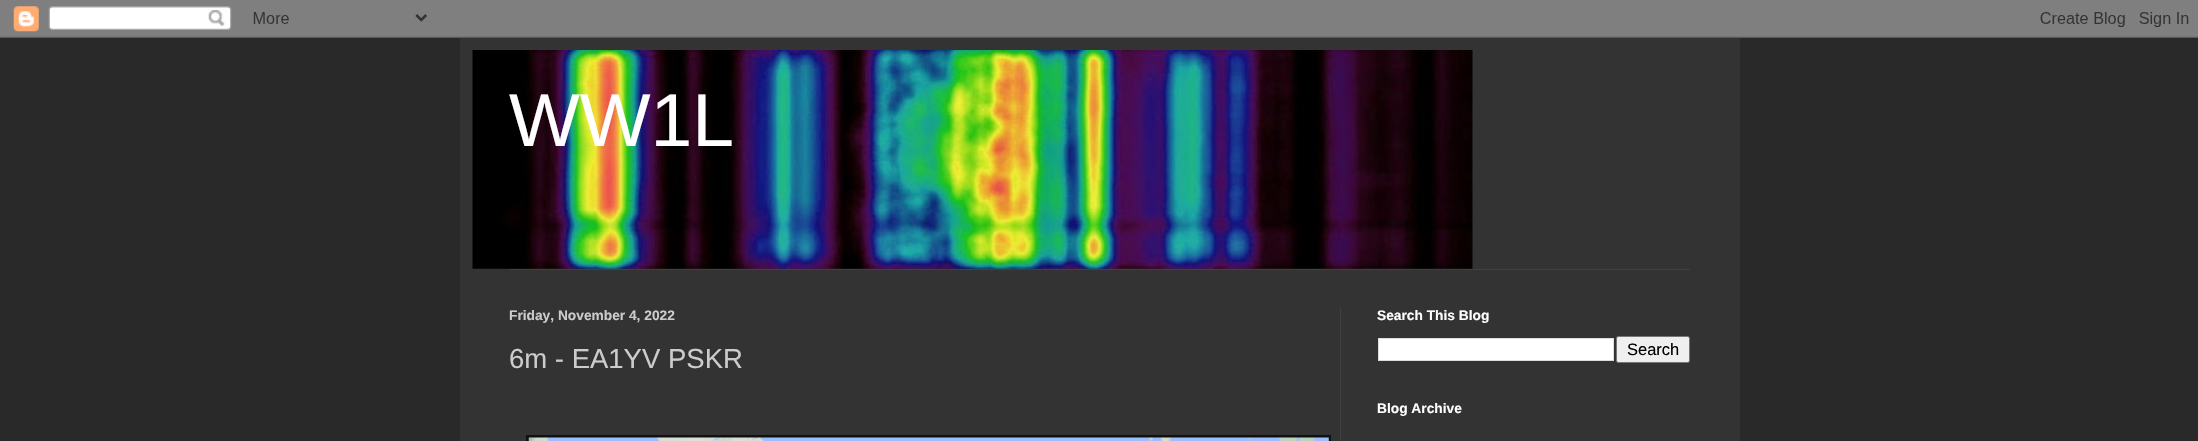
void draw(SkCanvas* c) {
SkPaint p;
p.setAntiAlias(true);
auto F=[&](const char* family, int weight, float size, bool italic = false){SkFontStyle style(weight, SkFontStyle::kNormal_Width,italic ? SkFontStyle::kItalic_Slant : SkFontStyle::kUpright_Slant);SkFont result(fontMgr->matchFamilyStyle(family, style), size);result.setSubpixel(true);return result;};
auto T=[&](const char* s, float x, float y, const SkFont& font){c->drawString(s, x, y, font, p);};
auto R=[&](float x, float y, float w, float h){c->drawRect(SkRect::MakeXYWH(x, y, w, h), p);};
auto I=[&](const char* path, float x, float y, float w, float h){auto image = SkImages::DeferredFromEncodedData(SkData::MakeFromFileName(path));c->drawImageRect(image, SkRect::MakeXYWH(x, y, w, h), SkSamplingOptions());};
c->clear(0xff292929);
I("1.png",0,0,2198,38);
p.setColor(0xff333333);
R(460,38,1280,403);
I("2.png",472,50,1001,219);
auto f1 = F("Liberation Sans",400,75);
p.setColor(0xffffffff);
T("WW1L",509,146,f1);
p.setColor(0xff404040);
R(510,269,1180,1);
R(1340,308,1,133);
auto f2 = F("Liberation Sans",700,13.75);
p.setColor(0xffcccccc);
T("Friday, November 4, 2022",509,320,f2);
auto f3 = F("Liberation Sans",400,27.5);
T("6m - EA1YV PSKR",509,368,f3);
p.setColor(0xff111111);
R(526,435,805,6);
I("3.png",528,437,801,4);
p.setColor(0xffffffff);
T("Search This Blog",1377,320,f2);
c->drawRect(SkRect::MakeXYWH(1378.5,338.5,235,22),p);
p.setStroke(true);
p.setStrokeWidth(1);
p.setColor(0xffdddddd);
c->drawRect(SkRect::MakeXYWH(1378.5,338.5,235,22),p);
p.setStroke(false);
p.setColor(0xffefefef);
c->drawRoundRect(SkRect::MakeXYWH(1616.5,336.5,73,26),2,2,p);
p.setStroke(true);
p.setColor(0xff767676);
c->drawRoundRect(SkRect::MakeXYWH(1616.5,336.5,73,26),2,2,p);
auto f4 = F("Liberation Sans",400,16.5);
p.setStroke(false);
p.setColor(0xff000000);
T("Search",1627,355,f4);
p.setColor(0xffffffff);
T("Blog Archive",1377,413,f2);
}
